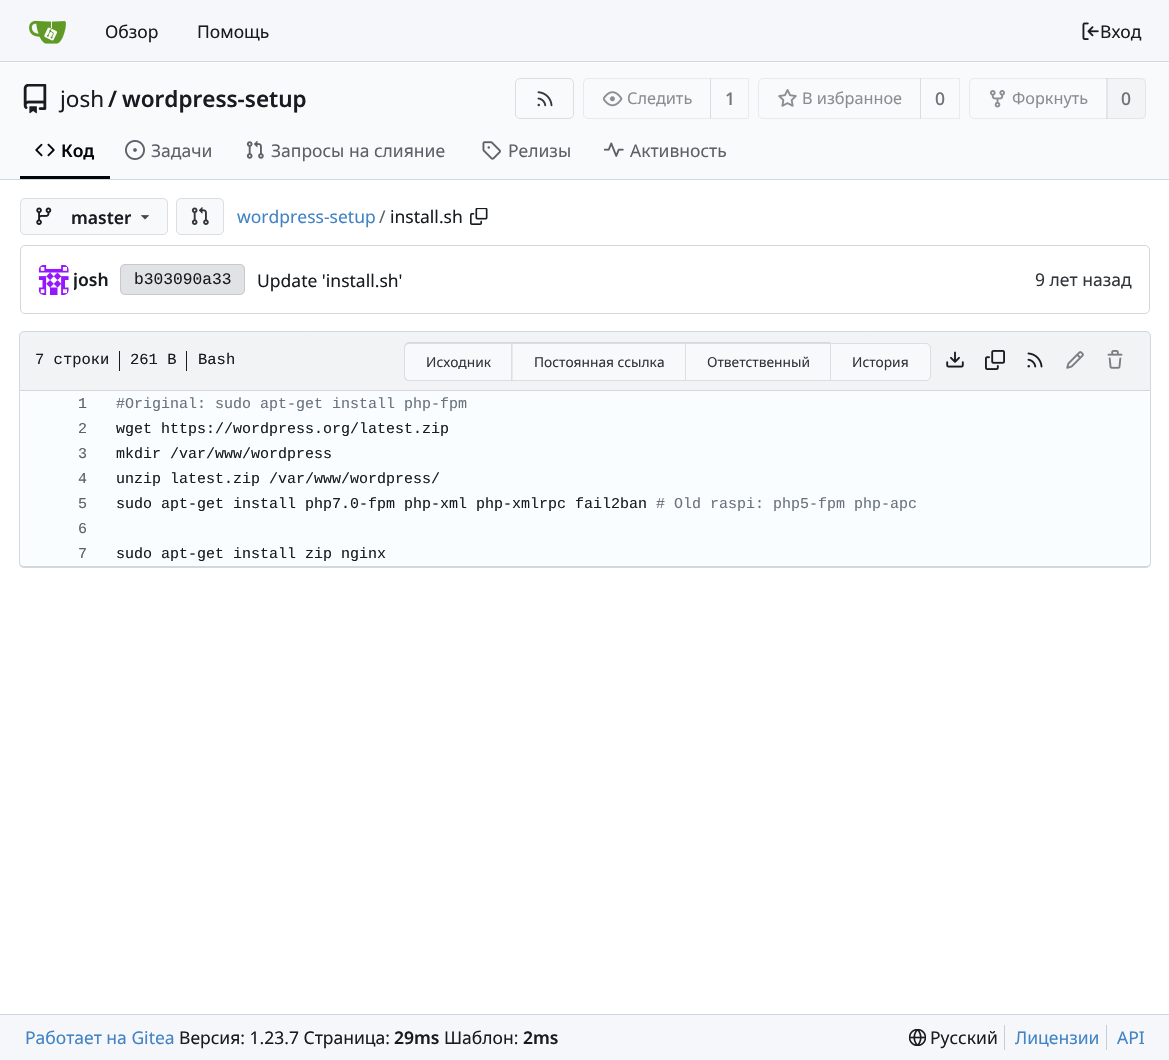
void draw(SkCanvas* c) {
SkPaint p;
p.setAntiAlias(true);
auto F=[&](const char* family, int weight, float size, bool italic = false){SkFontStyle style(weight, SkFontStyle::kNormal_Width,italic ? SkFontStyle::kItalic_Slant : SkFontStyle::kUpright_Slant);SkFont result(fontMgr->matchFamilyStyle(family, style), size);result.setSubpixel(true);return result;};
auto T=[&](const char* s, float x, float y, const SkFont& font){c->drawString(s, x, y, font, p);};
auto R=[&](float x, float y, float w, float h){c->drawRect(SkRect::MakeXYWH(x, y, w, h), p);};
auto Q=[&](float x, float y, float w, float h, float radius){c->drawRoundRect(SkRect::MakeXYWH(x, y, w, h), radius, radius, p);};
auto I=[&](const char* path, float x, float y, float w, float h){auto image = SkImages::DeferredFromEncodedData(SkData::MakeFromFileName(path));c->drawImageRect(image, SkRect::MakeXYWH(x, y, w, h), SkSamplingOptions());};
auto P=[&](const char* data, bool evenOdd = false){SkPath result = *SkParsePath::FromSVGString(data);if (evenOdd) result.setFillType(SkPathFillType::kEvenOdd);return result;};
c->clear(0xffffffff);
p.setColor(0xfff6f7fa);
R(0,0,1169,61);
p.setColor(0xffd0d7de);
R(0,61,1169,1);
I("1.png",29,20,37,24);
auto f1 = F("Noto Sans",400,17.5);
p.setColor(0xff181c21);
T("Обзор",105,38,f1);
T("Помощь",197,38,f1);
I("2.png",1082,22,17,18);
T("Вход",1100,38,f1);
p.setColor(0xfff9fafb);
R(0,63,1169,116);
I("3.png",23,84,24,30);
auto f2 = F("Noto Sans",400,22.5);
p.setColor(0xff181c21);
T("josh",60,107,f2);
auto f3 = F("Noto Sans",600,22.5);
T("/",108,107,f3);
T("wordpress-setup",122,107,f3);
p.setStroke(true);
p.setStrokeWidth(1);
p.setColor(0xffdddee1);
c->drawRoundRect(SkRect::MakeXYWH(515.5,78.5,58,40),4.5,4.5,p);
I("4.png",537,91,16,16);
p.setColor(0xffe9eaed);
c->drawPath(P("M588 78.5h122.5v40h-122.5c-2.5 0-4.5-2-4.5-4.5v-31c0-2.5 2-4.5 4.5-4.5z"),p);
I("5.png",603,91,20,16);
auto f4 = F("Noto Sans",400,16.25);
p.setStroke(false);
p.setColor(0xff8a8e91);
T("Следить",627,104,f4);
p.setStroke(true);
p.setColor(0x0f000017);
c->drawRect(SkRect::MakeXYWH(710.5,78.5,38,40),p);
auto f5 = F("Noto Sans",500,17.5);
p.setStroke(false);
p.setColor(0xff717376);
T("1",725,105,f5);
p.setStroke(true);
p.setColor(0xffe9eaed);
c->drawPath(P("M763 78.5h157.5v40h-157.5c-2.5 0-4.5-2-4.5-4.5v-31c0-2.5 2-4.5 4.5-4.5z"),p);
I("6.png",778,89,19,18);
p.setStroke(false);
p.setColor(0xff8a8e91);
T("В избранное",802,104,f4);
p.setStroke(true);
p.setColor(0x0f000017);
c->drawRect(SkRect::MakeXYWH(920.5,78.5,39,40),p);
p.setStroke(false);
p.setColor(0xff717376);
T("0",935,105,f5);
p.setStroke(true);
p.setColor(0xffe9eaed);
c->drawPath(P("M974 78.5h133.5v40h-133.5c-2.5 0-4.5-2-4.5-4.5v-31c0-2.5 2-4.5 4.5-4.5z"),p);
I("7.png",990,90,15,18);
p.setStroke(false);
p.setColor(0xff8a8e91);
T("Форкнуть",1012,104,f4);
p.setColor(0x0a707171);
R(1106,78,40,41);
p.setStroke(true);
p.setColor(0x1c70717e);
c->drawPath(P("M1106.5 78.5h34.5c2.5 0 4.5 2 4.5 4.5v31c0 2.5-2 4.5-4.5 4.5h-34.5z"),p);
p.setStroke(false);
p.setColor(0xff717376);
T("0",1121,105,f5);
p.setColor(0xff01050a);
R(20,176,90,3);
I("8.png",35,143,20,14);
auto f6 = F("Noto Sans",600,17.5);
T("Код",61,157,f6);
I("9.png",125,140,20,20);
p.setColor(0xff5b6167);
T("Задачи",151,157,f1);
I("10.png",246,140,18,19);
T("Запросы на слияние",271,157,f1);
I("11.png",482,141,19,19);
T("Релизы",508,157,f1);
I("12.png",604,142,20,15);
T("Активность",630,157,f1);
p.setColor(0xffd0d7de);
R(0,179,1169,1);
p.setColor(0xfff8f9fb);
Q(20,198,148,37,5);
p.setStroke(true);
p.setColor(0x1c000017);
c->drawRoundRect(SkRect::MakeXYWH(20.5,198.5,147,36),4.5,4.5,p);
I("13.png",36,207,16,18);
c->save();
c->clipRect(SkRect::MakeXYWH(71,205,60,24));
p.setStroke(false);
p.setColor(0xff181c21);
T("master",71,224,f6);
c->restore();
I("14.png",141,215,8,5);
p.setColor(0xfff8f9fb);
Q(176,198,48,37,5);
p.setStroke(true);
p.setColor(0x1c000017);
c->drawRoundRect(SkRect::MakeXYWH(176.5,198.5,47,36),4.5,4.5,p);
I("15.png",191,207,18,18);
p.setStroke(false);
p.setColor(0xff4183c4);
T("wordpress-setup",237,223,f1);
p.setColor(0xff5b6167);
T("/",379,223,f1);
p.setColor(0xff181c21);
T("install.sh",390,223,f1);
I("16.png",470,208,18,17);
p.setStroke(true);
p.setColor(0xffd0d7de);
c->drawRoundRect(SkRect::MakeXYWH(20.5,245.5,1129,68),4.5,4.5,p);
I("17.png",38,265,31,30);
c->save();
c->clipRect(SkRect::MakeXYWH(74,268,35,25));
p.setStroke(false);
p.setColor(0xff181c21);
T("josh",73,286,f6);
c->restore();
p.setColor(0xffe0e2e5);
Q(120,264,125,31,5);
p.setStroke(true);
p.setColor(0x1c000017);
c->drawRoundRect(SkRect::MakeXYWH(120.5,264.5,124,30),4.5,4.5,p);
auto f7 = F("Liberation Mono",400,16.25);
p.setStroke(false);
p.setColor(0xff181c21);
T("b303090a33",134,284,f7);
T("Update 'install.sh'",257,287,f1);
p.setColor(0xff30363b);
T("9 лет назад",1035,286,f1);
p.setColor(0xfff1f3f5);
c->drawPath(P("M24 331.5h1122c2.5 0 4.5 2 4.5 4.5v54.5h-1131v-54.5c0-2.5 2-4.5 4.5-4.5z"),p);
p.setStroke(true);
p.setColor(0xffd0d7de);
c->drawPath(P("M24 331.5h1122c2.5 0 4.5 2 4.5 4.5v54.5h-1131v-54.5c0-2.5 2-4.5 4.5-4.5z"),p);
auto f8 = F("Liberation Mono",400,15.5);
p.setStroke(false);
p.setColor(0xff181c21);
T("7 строки",35,364,f8);
R(119,351,1,20);
T("261 B",130,364,f8);
R(186,351,1,20);
T("Bash",198,364,f8);
p.setColor(0xfff8f9fb);
c->drawPath(P("M409 343h102v38h-102c-3 0-5-2-5-5v-28c0-3 2-5 5-5z"),p);
p.setColor(0x1c000017);
c->drawPath(P("M409 342h102v39h-102c-3 0-5-2-5-5v-28c0-3 2-6 5-6zm0 2h102v36h-102c-2 0-4-2-4-4v-28c0-3 2-4 4-4z",true),p);
auto f9 = F("Noto Sans",400,13.75);
p.setColor(0xff30363b);
T("Исходник",426,367,f9);
p.setColor(0xfff8f9fb);
R(511,343,319,38);
p.setColor(0x1c000017);
c->drawPath(P("M511 342h174v2h-173z"),p);
p.setColor(0xffdcdde1);
c->drawPath(P("M685 381h-174l1-1h173z"),p);
p.setColor(0x1c000017);
c->drawPath(P("M511 381v-38.5l1.5 1.5v36z"),p);
p.setColor(0xff30363b);
T("Постоянная ссылка",534,367,f9);
p.setColor(0x1c000017);
c->drawPath(P("M685 342h145v2h-144z"),p);
p.setColor(0xffdcdde1);
c->drawPath(P("M830 381h-145l1-1h144z"),p);
p.setColor(0x1c000017);
c->drawPath(P("M685 381v-38.5l1 1.5v36z"),p);
p.setColor(0xff30363b);
T("Ответственный",707,367,f9);
p.setColor(0xfff8f9fb);
c->drawPath(P("M830 343h96c3 0 5 2 5 5v28c0 3-2 5-5 5h-96z"),p);
p.setStroke(true);
p.setColor(0x1c000017);
c->drawPath(P("M830.5 343.5h95.5c2.5 0 4.5 2 4.5 4.5v28c0 2.5-2 4.5-4.5 4.5h-95.5z"),p);
p.setStroke(false);
p.setColor(0xff30363b);
T("История",852,367,f9);
I("18.png",946,351,18,17);
I("19.png",985,350,20,20);
I("20.png",1027,352,16,16);
I("21.png",1066,351,18,18);
I("22.png",1107,350,16,19);
p.setColor(0xffd0d7de);
c->drawPath(P("M19 391h1132v171c0 3-2 6-5 6h-1122c-3 0-5-3-5-6zm1 0h1130v171c0 3-2 4-4 4h-1122c-2 0-4-1-4-4z",true),p);
p.setColor(0xfffafdff);
Q(20,391,1130,175,5);
auto f10 = F("Liberation Mono",400,15);
p.setColor(0xff5b6167);
T("1",78,408,f10);
p.setColor(0xff6a737d);
T("#Original: sudo apt-get install php-fpm",116,408,f10);
p.setColor(0xff5b6167);
T("2",78,433,f10);
p.setColor(0xff181c21);
T("wget https://wordpress.org/latest.zip",116,433,f10);
p.setColor(0xff5b6167);
T("3",78,458,f10);
p.setColor(0xff181c21);
T("mkdir /var/www/wordpress",116,458,f10);
p.setColor(0xff5b6167);
T("4",78,483,f10);
p.setColor(0xff181c21);
T("unzip latest.zip /var/www/wordpress/",116,483,f10);
p.setColor(0xff5b6167);
T("5",78,508,f10);
p.setColor(0xff181c21);
T("sudo apt-get install php7.0-fpm php-xml php-xmlrpc fail2ban",116,508,f10);
p.setColor(0xff6a737d);
T("# Old raspi: php5-fpm php-apc",656,508,f10);
p.setColor(0xff5b6167);
T("6",78,533,f10);
T("7",78,558,f10);
p.setColor(0xff181c21);
T("sudo apt-get install zip nginx",116,558,f10);
p.setColor(0xfff6f7fa);
R(0,1015,1169,45);
p.setColor(0xffd0d7de);
R(0,1014,1169,1);
p.setColor(0xff4183c4);
T("Работает на Gitea",25,1044,f1);
p.setColor(0xff181c21);
T("Версия: 1.23.7 Страница:",179,1044,f1);
T("29ms",394,1044,f6);
T("Шаблон:",444,1044,f1);
T("2ms",523,1044,f6);
I("23.png",909,1029,17,17);
T("Русский",930,1044,f1);
p.setColor(0xffc7ced5);
R(1004,1025,1,25);
p.setColor(0xff4183c4);
T("Лицензии",1015,1044,f1);
p.setColor(0xffc7ced5);
R(1106,1025,1,25);
p.setColor(0xff4183c4);
T("API",1117,1044,f1);
}
